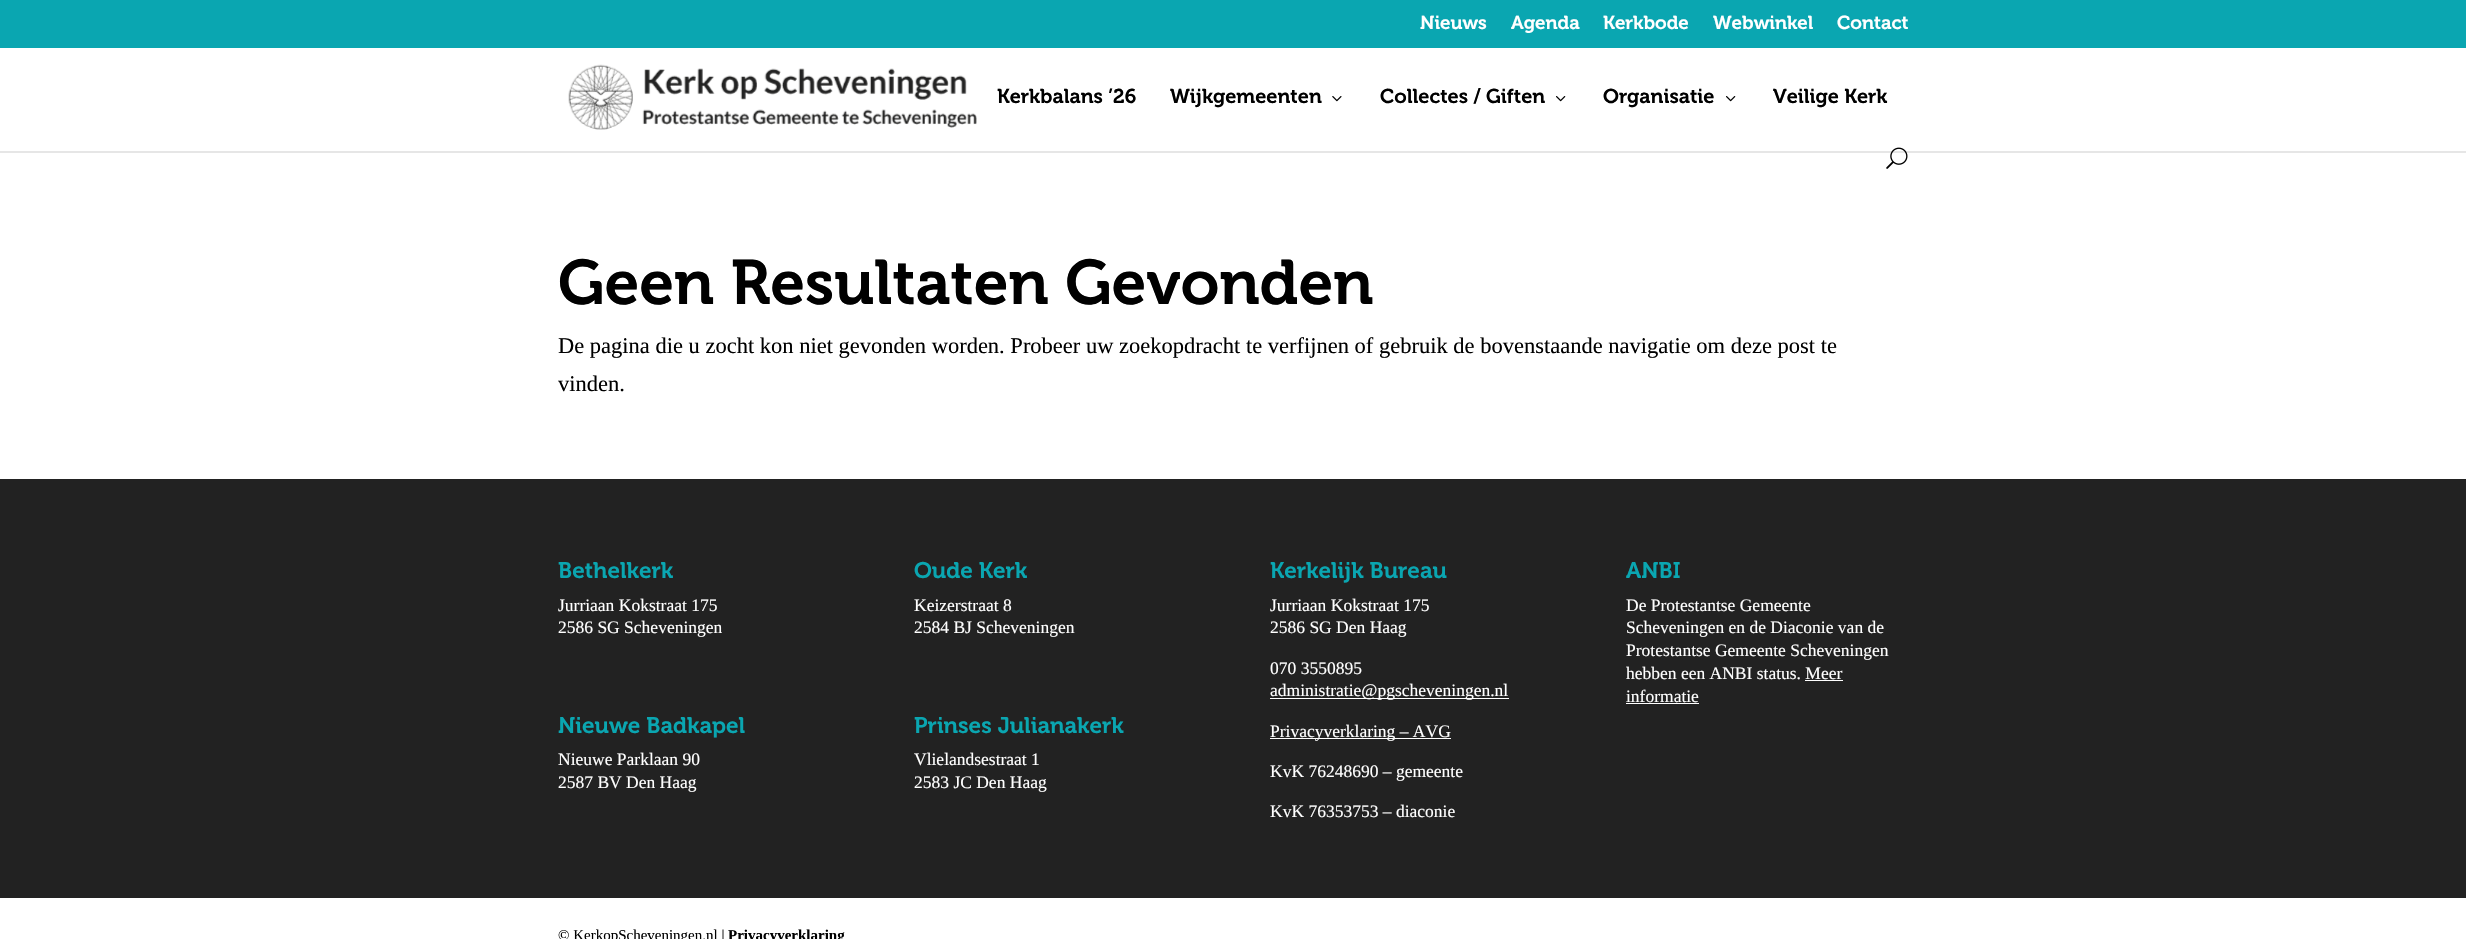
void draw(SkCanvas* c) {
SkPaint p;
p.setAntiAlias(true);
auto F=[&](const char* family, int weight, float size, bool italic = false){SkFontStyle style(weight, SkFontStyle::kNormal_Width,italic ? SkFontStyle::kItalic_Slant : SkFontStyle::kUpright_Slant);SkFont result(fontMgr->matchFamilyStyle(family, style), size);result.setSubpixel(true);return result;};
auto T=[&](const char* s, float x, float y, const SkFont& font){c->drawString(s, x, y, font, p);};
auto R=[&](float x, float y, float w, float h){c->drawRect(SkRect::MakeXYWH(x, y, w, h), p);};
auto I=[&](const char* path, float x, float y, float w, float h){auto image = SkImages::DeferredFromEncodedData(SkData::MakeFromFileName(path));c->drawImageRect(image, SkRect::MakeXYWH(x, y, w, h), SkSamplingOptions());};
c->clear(0xffffffff);
p.setColor(0xff0aa6b1);
R(0,0,2466,48);
auto f1 = F("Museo",600,18.75);
p.setColor(0xffffffff);
T("Nieuws",1420,29,f1);
T("Agenda",1511,29,f1);
T("Kerkbode",1603,29,f1);
T("Webwinkel",1713,29,f1);
T("Contact",1837,29,f1);
p.setColor(0xffe6e6e6);
R(0,151,2466,2);
I("1.png",568,64,409,66);
auto f2 = F("Museo",600,20);
p.setColor(0xff000000);
T("Kerkbalans ’26",997,103,f2);
T("Wijkgemeenten",1170,103,f2);
I("2.png",1332,96,10,6);
T("Collectes / Giften",1380,103,f2);
I("3.png",1556,96,10,6);
T("Organisatie",1603,103,f2);
I("3.png",1726,96,10,6);
T("Veilige Kerk",1773,103,f2);
I("4.png",1886,147,22,22);
auto f3 = F("Museo",600,62.5);
T("Geen Resultaten Gevonden",558,304,f3);
auto f4 = F("Liberation Serif",400,22.5);
T("De pagina die u zocht kon niet gevonden worden. Probeer uw zoekopdracht te verfijnen of gebruik de bovenstaande navigatie om deze post te",558,353,f4);
T("vinden.",558,391,f4);
p.setColor(0xff222222);
R(0,479,2466,419);
auto f5 = F("Museo",600,22.5);
p.setColor(0xff0aa6b1);
T("Bethelkerk",558,578,f5);
auto f6 = F("Liberation Serif",400,17.5);
p.setColor(0xffffffff);
T("Jurriaan Kokstraat 175",558,611,f6);
T("2586 SG Scheveningen",558,633,f6);
p.setColor(0xff0aa6b1);
T("Nieuwe Badkapel",558,733,f5);
p.setColor(0xffffffff);
T("Nieuwe Parklaan 90",558,765,f6);
T("2587 BV Den Haag",558,788,f6);
p.setColor(0xff0aa6b1);
T("Oude Kerk",914,578,f5);
p.setColor(0xffffffff);
T("Keizerstraat 8",914,611,f6);
T("2584 BJ Scheveningen",914,633,f6);
p.setColor(0xff0aa6b1);
T("Prinses Julianakerk",914,733,f5);
p.setColor(0xffffffff);
T("Vlielandsestraat 1",914,765,f6);
T("2583 JC Den Haag",914,788,f6);
p.setColor(0xff0aa6b1);
T("Kerkelijk Bureau",1270,578,f5);
p.setColor(0xffffffff);
T("Jurriaan Kokstraat 175",1270,611,f6);
T("2586 SG Den Haag",1270,633,f6);
T("070 3550895",1270,674,f6);
R(1270,698,239,1);
T("administratie@pgscheveningen.nl",1270,696,f6);
R(1270,738,181,1);
T("Privacyverklaring – AVG",1270,737,f6);
T("KvK 76248690 – gemeente",1270,777,f6);
T("KvK 76353753 – diaconie",1270,817,f6);
p.setColor(0xff0aa6b1);
T("ANBI",1626,578,f5);
p.setColor(0xffffffff);
T("De Protestantse Gemeente",1626,611,f6);
T("Scheveningen en de Diaconie van de",1626,633,f6);
T("Protestantse Gemeente Scheveningen",1626,656,f6);
T("hebben een ANBI status. Meer",1626,679,f6);
T("informatie",1626,702,f6);
R(1805,680,38,1);
R(1626,703,73,1);
auto f7 = F("Liberation Serif",400,15);
p.setColor(0xff000000);
T("© KerkopScheveningen.nl |",558,940,f7);
auto f8 = F("Liberation Serif",700,15);
T("Privacyverklaring",728,940,f8);
}
